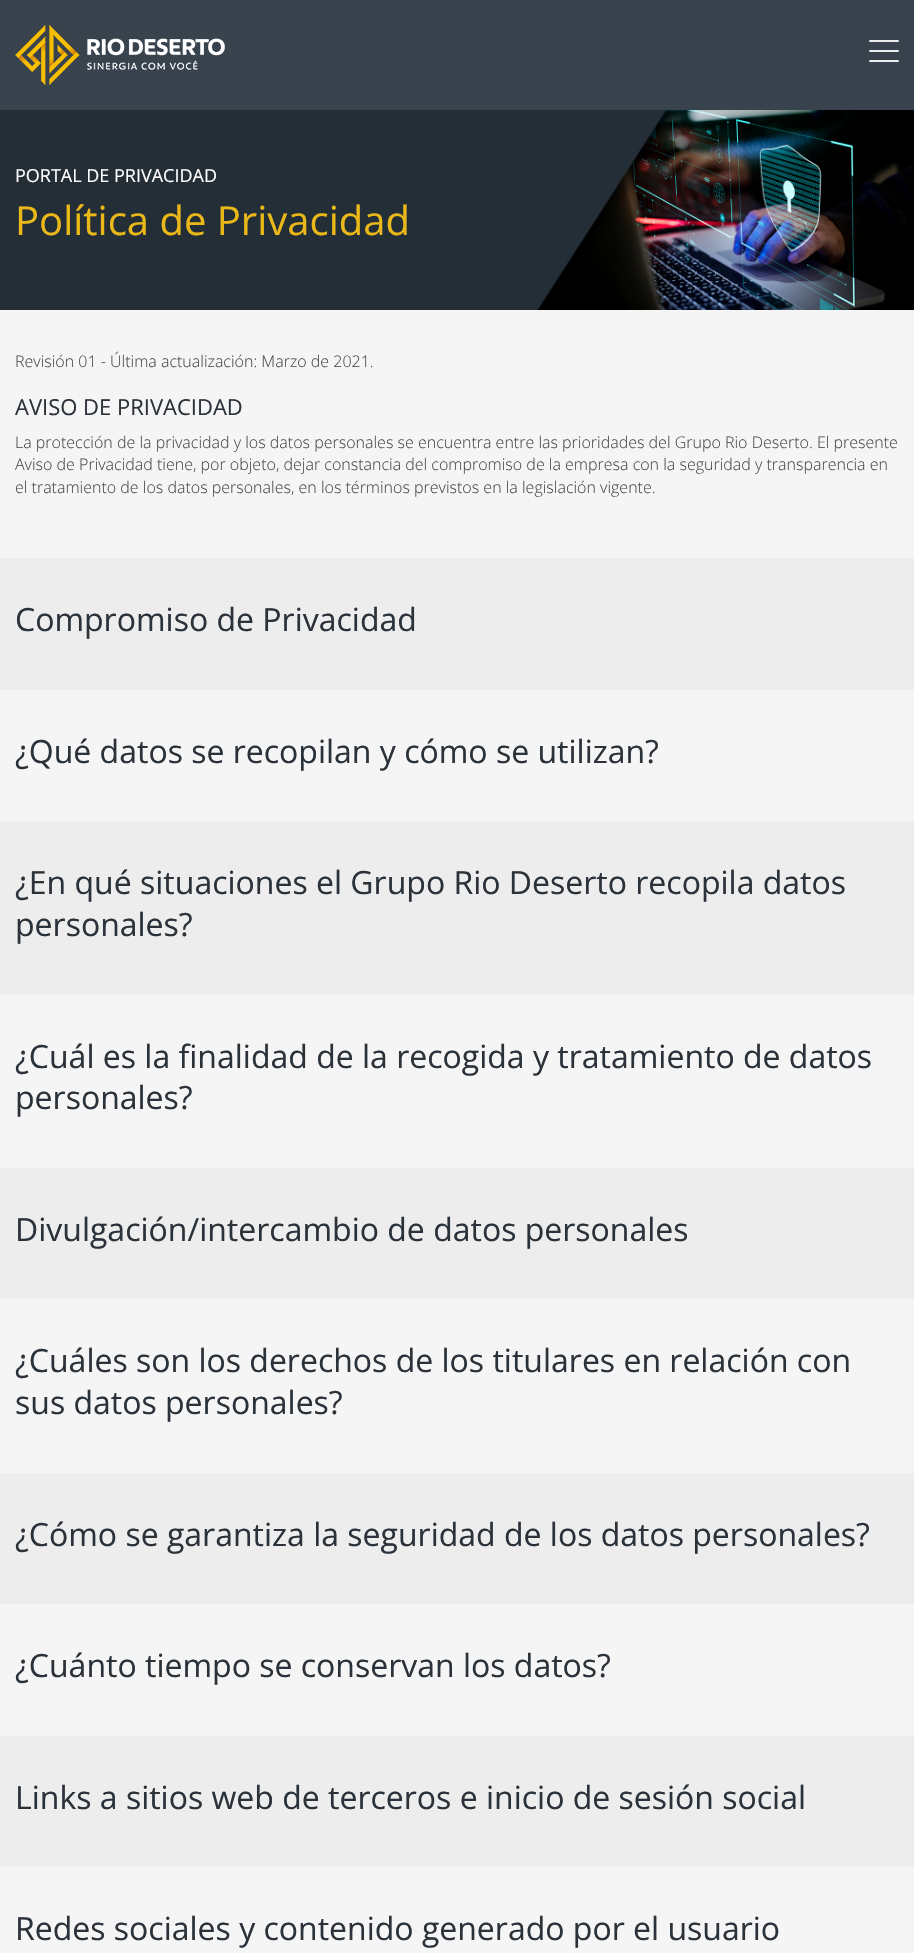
void draw(SkCanvas* c) {
SkPaint p;
p.setAntiAlias(true);
auto F=[&](const char* family, int weight, float size, bool italic = false){SkFontStyle style(weight, SkFontStyle::kNormal_Width,italic ? SkFontStyle::kItalic_Slant : SkFontStyle::kUpright_Slant);SkFont result(fontMgr->matchFamilyStyle(family, style), size);result.setSubpixel(true);return result;};
auto T=[&](const char* s, float x, float y, const SkFont& font){c->drawString(s, x, y, font, p);};
auto R=[&](float x, float y, float w, float h){c->drawRect(SkRect::MakeXYWH(x, y, w, h), p);};
auto Q=[&](float x, float y, float w, float h, float radius){c->drawRoundRect(SkRect::MakeXYWH(x, y, w, h), radius, radius, p);};
auto I=[&](const char* path, float x, float y, float w, float h){auto image = SkImages::DeferredFromEncodedData(SkData::MakeFromFileName(path));c->drawImageRect(image, SkRect::MakeXYWH(x, y, w, h), SkSamplingOptions());};
c->clear(0xff38434e);
I("1.png",15,25,210,60);
p.setColor(0xffededed);
Q(869,40,30,2,1);
Q(869,50,30,2,1);
Q(869,60,30,2,1);
I("2.png",0,110,914,200);
auto f1 = F("Open Sans",400,18);
p.setColor(0xffffffff);
T("PORTAL DE PRIVACIDAD",15,182,f1);
auto f2 = F("Open Sans",400,40);
p.setColor(0xffeab818);
T("Política de Privacidad",15,235,f2);
p.setColor(0xfff5f5f5);
R(0,310,914,1643);
auto f3 = F("Open Sans",300,16);
p.setColor(0xff4e4b4b);
T("Revisión 01 - Última actualización: Marzo de 2021.",15,367,f3);
auto f4 = F("Open Sans",400,22);
p.setColor(0xff2b3239);
T("AVISO DE PRIVACIDAD",15,415,f4);
p.setColor(0xff4e4b4b);
T("La protección de la privacidad y los datos personales se encuentra entre las prioridades del Grupo Rio Deserto. El presente",15,448,f3);
T("Aviso de Privacidad tiene, por objeto, dejar constancia del compromiso de la empresa con la seguridad y transparencia en",15,470,f3);
T("el tratamiento de los datos personales, en los términos previstos en la legislación vigente.",15,493,f3);
p.setColor(0xffededed);
R(0,558,914,132);
auto f5 = F("Open Sans",400,32);
p.setColor(0xff2b3239);
T("Compromiso de Privacidad",15,631,f5);
T("¿Qué datos se recopilan y cómo se utilizan?",15,763,f5);
p.setColor(0xffededed);
R(0,821,914,174);
p.setColor(0xff2b3239);
T("¿En qué situaciones el Grupo Rio Deserto recopila datos",15,894,f5);
T("personales?",15,936,f5);
T("¿Cuál es la finalidad de la recogida y tratamiento de datos",15,1068,f5);
T("personales?",15,1109,f5);
p.setColor(0xffededed);
R(0,1168,914,131);
p.setColor(0xff2b3239);
T("Divulgación/intercambio de datos personales",15,1241,f5);
T("¿Cuáles son los derechos de los titulares en relación con",15,1372,f5);
T("sus datos personales?",15,1414,f5);
p.setColor(0xffededed);
R(0,1473,914,131);
p.setColor(0xff2b3239);
T("¿Cómo se garantiza la seguridad de los datos personales?",15,1546,f5);
T("¿Cuánto tiempo se conservan los datos?",15,1677,f5);
p.setColor(0xffededed);
R(0,1736,914,131);
p.setColor(0xff2b3239);
T("Links a sitios web de terceros e inicio de sesión social",15,1809,f5);
T("Redes sociales y contenido generado por el usuario",15,1940,f5);
}
